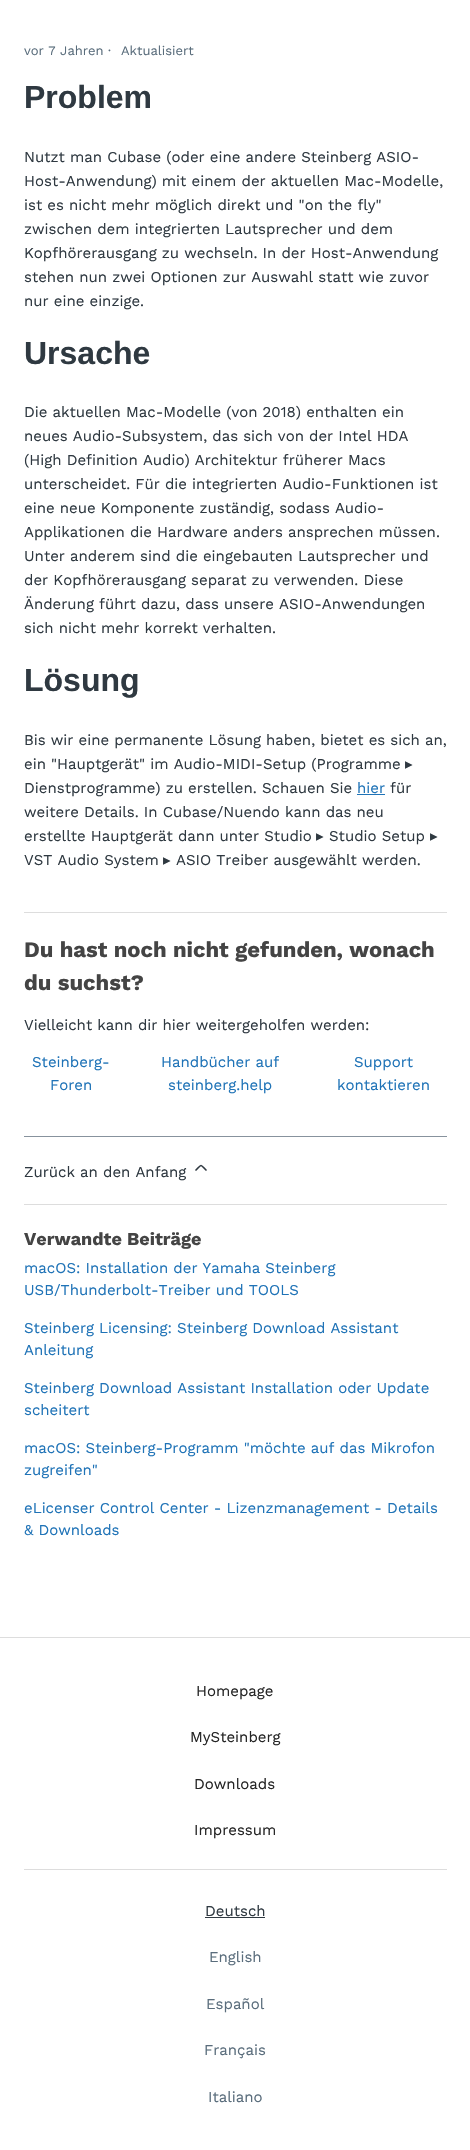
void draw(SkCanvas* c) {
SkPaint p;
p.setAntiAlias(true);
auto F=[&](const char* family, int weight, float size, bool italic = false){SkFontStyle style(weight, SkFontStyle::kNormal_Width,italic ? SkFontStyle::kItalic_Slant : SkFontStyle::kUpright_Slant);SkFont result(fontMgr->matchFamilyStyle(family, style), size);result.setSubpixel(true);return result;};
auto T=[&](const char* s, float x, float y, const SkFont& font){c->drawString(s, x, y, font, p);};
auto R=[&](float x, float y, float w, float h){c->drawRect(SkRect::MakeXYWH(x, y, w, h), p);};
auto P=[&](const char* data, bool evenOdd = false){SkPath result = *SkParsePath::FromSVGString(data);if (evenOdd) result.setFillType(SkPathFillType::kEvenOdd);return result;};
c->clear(0xffffffff);
auto f1 = F("Work Sans",400,13);
p.setColor(0xff5a6d7c);
T("vor 7 Jahren",24,55,f1);
T("·",108,55,f1);
T("Aktualisiert",121,55,f1);
auto f2 = F("Liberation Sans",700,32);
p.setColor(0xff2f3941);
T("Problem",24,108,f2);
auto f3 = F("Work Sans",400,15);
T("Nutzt man Cubase (oder eine andere Steinberg ASIO-",24,162,f3);
T("Host-Anwendung) mit einem der aktuellen Mac-Modelle,",24,186,f3);
T("ist es nicht mehr möglich direkt und \"on the fly\"",24,210,f3);
T("zwischen dem integrierten Lautsprecher und dem",24,234,f3);
T("Kopfhörerausgang zu wechseln. In der Host-Anwendung",24,258,f3);
T("stehen nun zwei Optionen zur Auswahl statt wie zuvor",24,282,f3);
T("nur eine einzige.",24,306,f3);
T("Ursache",24,364,f2);
T("Die aktuellen Mac-Modelle (von 2018) enthalten ein",24,417,f3);
T("neues Audio-Subsystem, das sich von der Intel HDA",24,441,f3);
T("(High Definition Audio) Architektur früherer Macs",24,465,f3);
T("unterscheidet. Für die integrierten Audio-Funktionen ist",24,489,f3);
T("eine neue Komponente zuständig, sodass Audio-",24,513,f3);
T("Applikationen die Hardware anders ansprechen müssen.",24,537,f3);
T("Unter anderem sind die eingebauten Lautsprecher und",24,561,f3);
T("der Kopfhörerausgang separat zu verwenden. Diese",24,585,f3);
T("Änderung führt dazu, dass unsere ASIO-Anwendungen",24,609,f3);
T("sich nicht mehr korrekt verhalten.",24,633,f3);
T("Lösung",24,691,f2);
T("Bis wir eine permanente Lösung haben, bietet es sich an,",24,745,f3);
T("ein \"Hauptgerät\" im Audio-MIDI-Setup (Programme",24,769,f3);
auto f4 = F("DejaVu Sans",400,15);
T("▸",405,769,f4);
T("Dienstprogramme) zu erstellen. Schauen Sie",24,793,f3);
p.setColor(0xff1f73b7);
T("hier",357,793,f3);
R(357,794,28,1);
p.setColor(0xff2f3941);
T("für",390,793,f3);
T("weitere Details. In Cubase/Nuendo kann das neu",24,817,f3);
T("erstellte Hauptgerät dann unter Studio",24,841,f3);
T("▸",316,841,f4);
T("Studio Setup",329,841,f3);
T("▸",430,841,f4);
T("VST Audio System",24,865,f3);
T("▸",163,865,f4);
T("ASIO Treiber ausgewählt werden.",176,865,f3);
p.setColor(0xffdddddd);
R(24,912,423,1);
auto f5 = F("Work Sans",700,22);
p.setColor(0xff444444);
T("Du hast noch nicht gefunden, wonach",24,957,f5);
T("du suchst?",24,990,f5);
p.setColor(0xff2f3941);
T("Vielleicht kann dir hier weitergeholfen werden:",24,1030,f3);
p.setColor(0xff1f73b7);
T("Steinberg-",32,1067,f3);
T("Foren",50,1090,f3);
T("Handbücher auf",161,1067,f3);
T("steinberg.help",168,1090,f3);
T("Support",354,1067,f3);
T("kontaktieren",337,1090,f3);
p.setColor(0xff87929d);
R(24,1136,423,1);
p.setColor(0xff2f3941);
T("Zurück an den Anfang",24,1177,f3);
p.setStroke(true);
p.setStrokeWidth(1.7);
p.setStrokeCap(SkPaint::kRound_Cap);
c->drawPath(P("M206 1170c-6-6-4-6-10 0"),p);
p.setStroke(false);
p.setColor(0xffdddddd);
R(24,1204,423,1);
auto f6 = F("Work Sans",700,18);
p.setColor(0xff444444);
T("Verwandte Beiträge",24,1245,f6);
p.setColor(0xff1f73b7);
T("macOS: Installation der Yamaha Steinberg",24,1273,f3);
T("USB/Thunderbolt-Treiber und TOOLS",24,1295,f3);
T("Steinberg Licensing: Steinberg Download Assistant",24,1333,f3);
T("Anleitung",24,1355,f3);
T("Steinberg Download Assistant Installation oder Update",24,1393,f3);
T("scheitert",24,1415,f3);
T("macOS: Steinberg-Programm \"möchte auf das Mikrofon",24,1453,f3);
T("zugreifen\"",24,1475,f3);
T("eLicenser Control Center - Lizenzmanagement - Details",24,1513,f3);
T("& Downloads",24,1535,f3);
p.setColor(0xffdddddd);
R(0,1637,470,1);
R(24,1869,423,1);
p.setColor(0xff252525);
T("Homepage",196,1696,f3);
T("MySteinberg",190,1742,f3);
T("Downloads",194,1789,f3);
T("Impressum",194,1835,f3);
p.setColor(0xff2f3941);
T("Deutsch",205,1916,f3);
R(205,1917,60,1);
p.setColor(0xff5a6d7c);
T("English",209,1962,f3);
T("Español",206,2009,f3);
T("Français",204,2055,f3);
T("Italiano",208,2102,f3);
}
